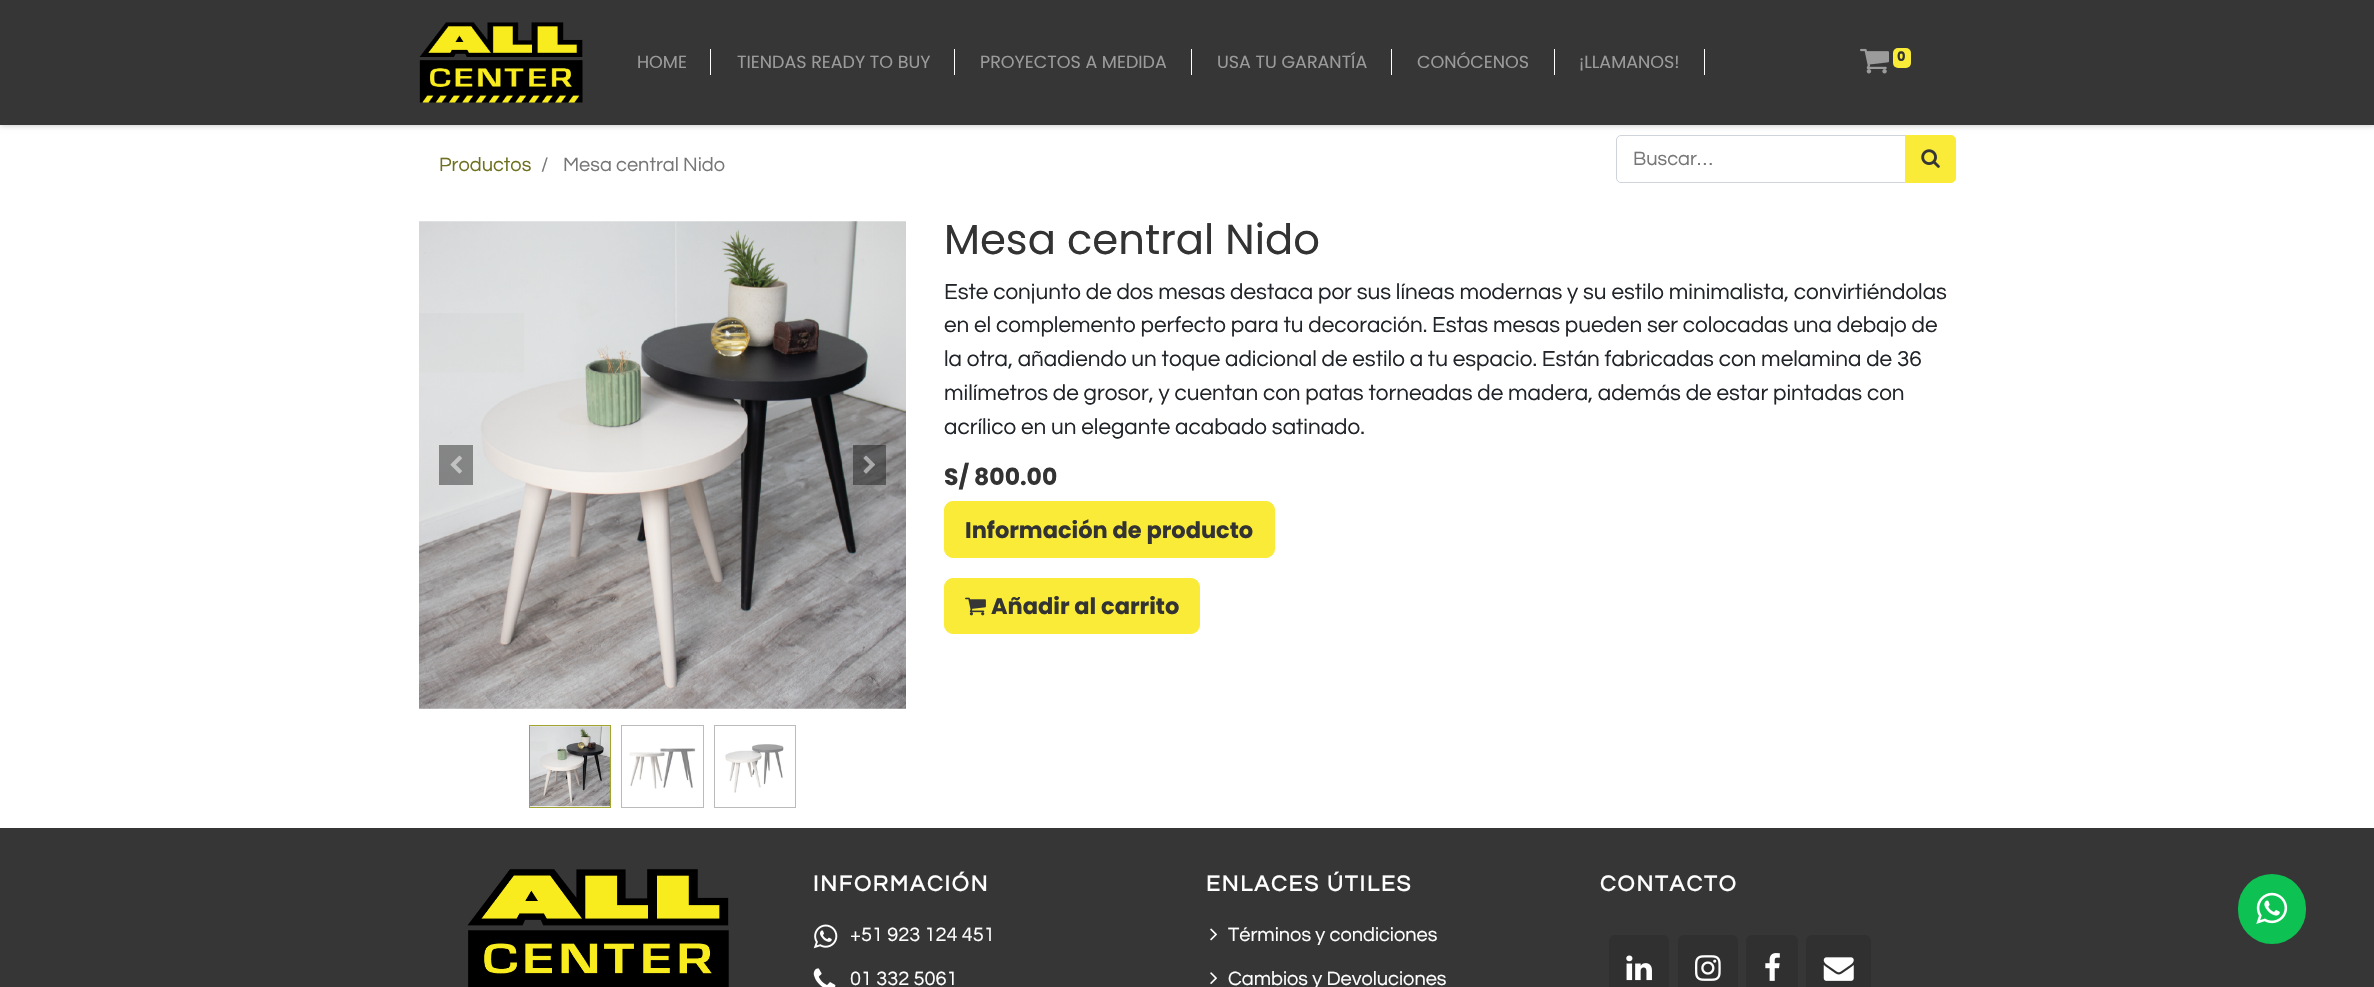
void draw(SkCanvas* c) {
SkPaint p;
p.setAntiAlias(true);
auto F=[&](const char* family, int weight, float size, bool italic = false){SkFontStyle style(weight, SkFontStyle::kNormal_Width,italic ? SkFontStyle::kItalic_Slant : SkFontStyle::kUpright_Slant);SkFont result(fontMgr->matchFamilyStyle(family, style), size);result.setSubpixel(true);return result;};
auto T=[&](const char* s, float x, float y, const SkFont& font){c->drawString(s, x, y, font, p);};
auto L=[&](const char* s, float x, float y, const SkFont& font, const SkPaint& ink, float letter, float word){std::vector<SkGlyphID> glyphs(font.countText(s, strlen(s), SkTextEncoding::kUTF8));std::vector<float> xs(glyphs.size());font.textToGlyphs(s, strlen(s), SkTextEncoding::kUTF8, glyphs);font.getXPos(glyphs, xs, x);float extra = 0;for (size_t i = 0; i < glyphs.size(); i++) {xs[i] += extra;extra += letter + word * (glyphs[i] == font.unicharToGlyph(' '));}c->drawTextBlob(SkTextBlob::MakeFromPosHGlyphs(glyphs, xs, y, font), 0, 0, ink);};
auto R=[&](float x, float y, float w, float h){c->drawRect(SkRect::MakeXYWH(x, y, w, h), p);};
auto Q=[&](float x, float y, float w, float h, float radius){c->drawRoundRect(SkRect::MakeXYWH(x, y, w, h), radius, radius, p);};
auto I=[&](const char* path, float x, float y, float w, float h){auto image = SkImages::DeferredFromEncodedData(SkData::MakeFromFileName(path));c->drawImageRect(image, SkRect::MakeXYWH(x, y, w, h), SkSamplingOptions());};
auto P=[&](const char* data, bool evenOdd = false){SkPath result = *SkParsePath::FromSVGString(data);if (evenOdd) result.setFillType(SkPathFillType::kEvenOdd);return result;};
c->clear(0xffffffff);
p.setColor(0x40000000);
p.setMaskFilter(SkMaskFilter::MakeBlur(kNormal_SkBlurStyle, 3));
c->drawRect(SkRect::MakeXYWH(0,0,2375,125),p);
p.setMaskFilter(nullptr);
p.setColor(0xff363636);
R(0,0,2374,125);
I("1.png",419,22,164,81);
auto f1 = F("Poppins",400,17.5);
p.setColor(0xff9b9b9b);
T("HOME",637,68,f1);
p.setColor(0xffffffff);
R(710,49,1,26);
p.setColor(0xff9b9b9b);
T("TIENDAS READY TO BUY",737,68,f1);
p.setColor(0xffffffff);
R(954,49,1,26);
p.setColor(0xff9b9b9b);
T("PROYECTOS A MEDIDA",980,68,f1);
p.setColor(0xffffffff);
R(1191,49,1,26);
p.setColor(0xff9b9b9b);
T("USA TU GARANTÍA",1217,68,f1);
p.setColor(0xffffffff);
R(1391,49,1,26);
p.setColor(0xff9b9b9b);
T("CONÓCENOS",1417,68,f1);
p.setColor(0xffffffff);
R(1554,49,1,26);
p.setColor(0xff9b9b9b);
T("¡LLAMANOS!",1579,68,f1);
p.setColor(0xffffffff);
R(1704,49,1,26);
I("2.png",1860,48,29,26);
p.setColor(0xfff9eb37);
Q(1893,48,18,20,5);
auto f2 = F("Poppins",700,13);
p.setColor(0xff333333);
T("0",1897,61,f2);
auto f3 = F("Questrial",400,20);
p.setColor(0xff6f7120);
T("Productos",439,171,f3);
p.setColor(0xff777777);
T("/",541,171,f3);
T("Mesa central Nido",563,171,f3);
p.setStroke(true);
p.setStrokeWidth(1);
p.setColor(0xffced4da);
c->drawPath(P("M1621 135.5h284.5v47h-284.5c-2.5 0-4.5-2-4.5-4.5v-38c0-2.5 2-4.5 4.5-4.5z"),p);
p.setStroke(false);
p.setColor(0xff777777);
T("Buscar…",1633,165,f3);
p.setColor(0xfff9eb37);
c->drawPath(P("M1905.5 135.5h45.5c2.5 0 4.5 2 4.5 4.5v38c0 2.5-2 4.5-4.5 4.5h-45.5z"),p);
p.setStroke(true);
c->drawPath(P("M1905.5 135.5h45.5c2.5 0 4.5 2 4.5 4.5v38c0 2.5-2 4.5-4.5 4.5h-45.5z"),p);
I("3.png",1921,149,19,19);
I("4.png",419,221,487,488);
p.setStroke(false);
p.setColor(0x66000000);
R(439,445,34,40);
I("5.png",450,455,12,19);
R(853,445,33,40);
I("6.png",863,455,12,19);
p.setStroke(true);
p.setColor(0xffa1a52f);
c->drawRect(SkRect::MakeXYWH(529.5,725.5,81,82),p);
I("7.png",530,726,80,81);
p.setColor(0xffbbbbbb);
c->drawRect(SkRect::MakeXYWH(621.5,725.5,82,82),p);
I("8.png",629,748,67,41);
c->drawRect(SkRect::MakeXYWH(714.5,725.5,81,82),p);
I("9.png",725,744,59,49);
auto f4 = F("Poppins",400,41.75);
p.setStroke(false);
p.setColor(0xff333333);
T("Mesa central Nido",944,254,f4);
auto f5 = F("Questrial",400,22.5);
p.setColor(0xff212529);
T("Este conjunto de dos mesas destaca por sus líneas modernas y su estilo minimalista, convirtiéndolas",944,299,f5);
T("en el complemento perfecto para tu decoración. Estas mesas pueden ser colocadas una debajo de",944,332,f5);
T("la otra, añadiendo un toque adicional de estilo a tu espacio. Están fabricadas con melamina de 36",944,366,f5);
T("milímetros de grosor, y cuentan con patas torneadas de madera, además de estar pintadas con",944,400,f5);
T("acrílico en un elegante acabado satinado.",944,434,f5);
auto f6 = F("Poppins",700,23.5);
p.setColor(0xff333333);
T("S/ 800.00",944,485,f6);
p.setColor(0xfff9eb37);
c->drawRoundRect(SkRect::MakeXYWH(944.5,501.5,330,56),8.5,8.5,p);
p.setStroke(true);
c->drawRoundRect(SkRect::MakeXYWH(944.5,501.5,330,56),8.5,8.5,p);
auto f7 = F("Poppins",700,22.5);
p.setStroke(false);
p.setColor(0xff333333);
T("Información de producto",965,538,f7);
p.setColor(0xfff9eb37);
c->drawRoundRect(SkRect::MakeXYWH(944.5,578.5,255,55),8.5,8.5,p);
p.setStroke(true);
c->drawRoundRect(SkRect::MakeXYWH(944.5,578.5,255,55),8.5,8.5,p);
I("10.png",965,597,21,19);
p.setStroke(false);
p.setColor(0xff333333);
T("Añadir al carrito",991,614,f7);
p.setColor(0xff363636);
R(0,828,2374,159);
I("11.png",467,869,262,118);
auto f8 = F("Questrial",700,22.5);
p.setColor(0xffffffff);
L("INFORMACIÓN",813,891,f8,p,2,0);
I("12.png",813,924,25,25);
T("+51 923 124 451",850,941,f3);
I("13.png",813,968,23,19);
T("01 332 5061",850,985,f3);
L("ENLACES ÚTILES",1206,891,f8,p,2,0);
I("14.png",1210,928,7,13);
T("Términos y condiciones",1228,941,f3);
I("15.png",1210,972,7,12);
T("Cambios y Devoluciones",1228,985,f3);
L("CONTACTO",1600,891,f8,p,2,0);
p.setColor(0xff303030);
c->drawPath(P("M1615 935h48c3.5 0 6 2.5 6 6v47h-60v-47c0-3.5 2.5-6 6-6z"),p);
I("16.png",1626,955,26,26);
c->drawPath(P("M1684 935h48c3.5 0 6 2.5 6 6v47h-60v-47c0-3.5 2.5-6 6-6z"),p);
I("17.png",1695,955,26,26);
c->drawPath(P("M1752 935h40c3.5 0 6 2.5 6 6v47h-52v-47c0-3.5 2.5-6 6-6z"),p);
I("18.png",1765,953,15,28);
c->drawPath(P("M1812 935h53c3.5 0 6 2.5 6 6v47h-65v-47c0-3.5 2.5-6 6-6z"),p);
I("19.png",1823,957,31,24);
p.setColor(0xff0dc152);
Q(2238,874,68,70,34);
I("20.png",2256,892,32,32);
}
